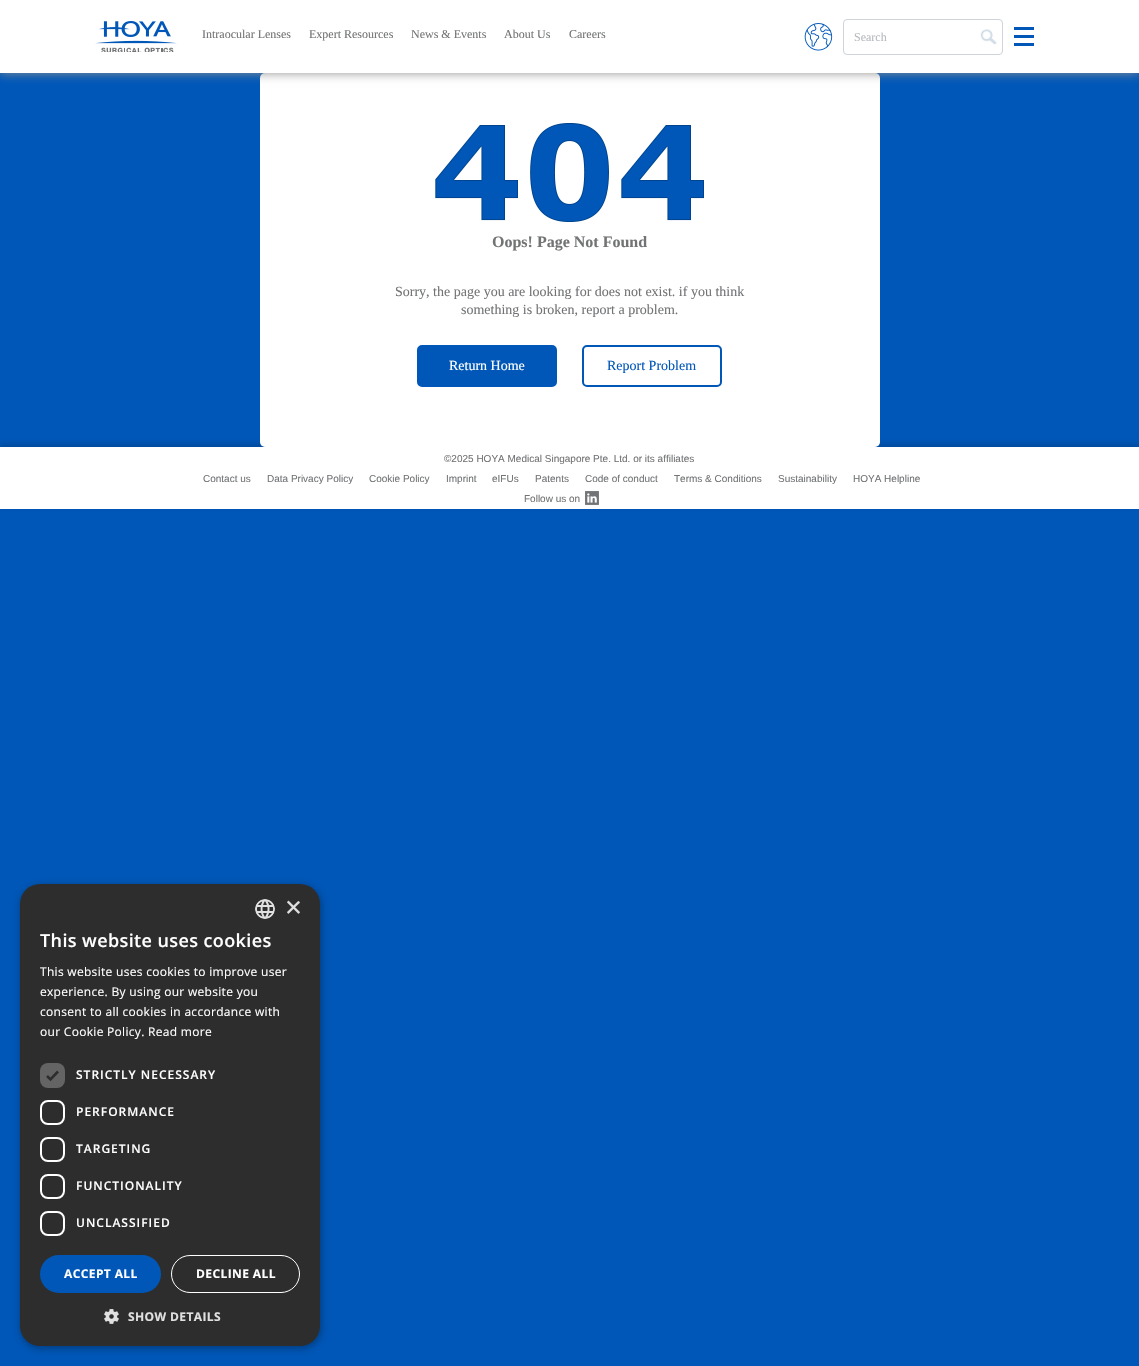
void draw(SkCanvas* c) {
SkPaint p;
p.setAntiAlias(true);
auto F=[&](const char* family, int weight, float size, bool italic = false){SkFontStyle style(weight, SkFontStyle::kNormal_Width,italic ? SkFontStyle::kItalic_Slant : SkFontStyle::kUpright_Slant);SkFont result(fontMgr->matchFamilyStyle(family, style), size);result.setSubpixel(true);return result;};
auto T=[&](const char* s, float x, float y, const SkFont& font){c->drawString(s, x, y, font, p);};
auto L=[&](const char* s, float x, float y, const SkFont& font, const SkPaint& ink, float letter, float word){std::vector<SkGlyphID> glyphs(font.countText(s, strlen(s), SkTextEncoding::kUTF8));std::vector<float> xs(glyphs.size());font.textToGlyphs(s, strlen(s), SkTextEncoding::kUTF8, glyphs);font.getXPos(glyphs, xs, x);float extra = 0;for (size_t i = 0; i < glyphs.size(); i++) {xs[i] += extra;extra += letter + word * (glyphs[i] == font.unicharToGlyph(' '));}c->drawTextBlob(SkTextBlob::MakeFromPosHGlyphs(glyphs, xs, y, font), 0, 0, ink);};
auto R=[&](float x, float y, float w, float h){c->drawRect(SkRect::MakeXYWH(x, y, w, h), p);};
auto Q=[&](float x, float y, float w, float h, float radius){c->drawRoundRect(SkRect::MakeXYWH(x, y, w, h), radius, radius, p);};
auto I=[&](const char* path, float x, float y, float w, float h){auto image = SkImages::DeferredFromEncodedData(SkData::MakeFromFileName(path));c->drawImageRect(image, SkRect::MakeXYWH(x, y, w, h), SkSamplingOptions());};
auto P=[&](const char* data, bool evenOdd = false){SkPath result = *SkParsePath::FromSVGString(data);if (evenOdd) result.setFillType(SkPathFillType::kEvenOdd);return result;};
c->clear(0xff0057b8);
p.setColor(0x29000000);
p.setMaskFilter(SkMaskFilter::MakeBlur(kNormal_SkBlurStyle, 3));
c->drawRect(SkRect::MakeXYWH(0,444,1139,62),p);
p.setMaskFilter(nullptr);
p.setColor(0xffffffff);
Q(260,73,620,374,5);
p.setColor(0xff919191);
p.setMaskFilter(SkMaskFilter::MakeBlur(kNormal_SkBlurStyle, 5));
c->drawRect(SkRect::MakeXYWH(0,0,1139,73),p);
p.setMaskFilter(nullptr);
p.setColor(0xffffffff);
R(0,0,1139,73);
I("1.png",95,21,82,31);
auto f1 = F("Liberation Serif",400,12);
p.setColor(0xff717375);
T("Intraocular Lenses",202,38,f1);
T("Expert Resources",309,38,f1);
T("News & Events",411,38,f1);
T("About Us",504,38,f1);
T("Careers",569,38,f1);
I("2.png",804,23,29,28);
I("3.png",980,29,17,16);
p.setStroke(true);
p.setStrokeWidth(1);
p.setColor(0xffced4da);
c->drawRoundRect(SkRect::MakeXYWH(843.5,19.5,159,35),3.5,3.5,p);
p.setStroke(false);
p.setColor(0xffb6babe);
T("Search",854,41,f1);
p.setColor(0xff0057b8);
R(1014,27,20,3);
R(1014,35,20,3);
R(1014,43,20,3);
I("4.png",435,123,269,99);
auto f2 = F("Liberation Serif",700,16);
p.setColor(0xff717375);
T("Oops! Page Not Found",492,247,f2);
auto f3 = F("Liberation Serif",400,14);
T("Sorry, the page you are looking for does not exist. if you think",395,296,f3);
T("something is broken, report a problem.",461,314,f3);
p.setColor(0xff0057b8);
c->drawRoundRect(SkRect::MakeXYWH(418,346,138,40),4,4,p);
p.setStroke(true);
p.setStrokeWidth(2);
c->drawRoundRect(SkRect::MakeXYWH(418,346,138,40),4,4,p);
p.setStroke(false);
p.setColor(0xffffffff);
T("Return Home",449,370,f3);
p.setStroke(true);
p.setColor(0xff0057b8);
c->drawRoundRect(SkRect::MakeXYWH(583,346,138,40),4,4,p);
p.setStroke(false);
T("Report Problem",607,370,f3);
p.setColor(0xffffffff);
R(0,447,1139,62);
auto f4 = F("Liberation Sans",400,10);
p.setColor(0xff717375);
T("©2025 HOYA Medical Singapore Pte. Ltd. or its affiliates",444,462,f4);
T("Contact us",203,482,f4);
T("Data Privacy Policy",267,482,f4);
T("Cookie Policy",369,482,f4);
T("Imprint",446,482,f4);
T("eIFUs",492,482,f4);
T("Patents",535,482,f4);
T("Code of conduct",585,482,f4);
T("Terms & Conditions",674,482,f4);
T("Sustainability",778,482,f4);
T("HOYA Helpline",853,482,f4);
T("Follow us on",524,502,f4);
I("5.png",585,491,14,14);
p.setColor(0x59000000);
p.setMaskFilter(SkMaskFilter::MakeBlur(kNormal_SkBlurStyle, 4));
c->drawRoundRect(SkRect::MakeXYWH(21,886,300,462),20,20,p);
p.setMaskFilter(nullptr);
p.setColor(0xff2d2d2d);
Q(20,884,300,462,20);
I("6.png",255,899,20,20);
auto f5 = F("Liberation Sans",400,29);
p.setColor(0xffe0e0e0);
T("×",285,917,f5);
auto f6 = F("Open Sans",600,18);
p.setColor(0xffffffff);
L("This website uses cookies",40,947,f6,p,.4,0);
auto f7 = F("Open Sans",400,12);
L("This website uses cookies to improve user",40,976,f7,p,.3,0);
L("experience. By using our website you",40,996,f7,p,.3,0);
L("consent to all cookies in accordance with",40,1016,f7,p,.3,0);
L("our Cookie Policy. Read more",40,1036,f7,p,.3,0);
p.setColor(0xff646464);
Q(40,1063,25,25,8);
p.setStroke(true);
p.setStrokeWidth(2.6);
p.setColor(0xff2d2d2d);
c->drawPath(P("M47 1076l3.5 3.5l7.5-8"),p);
auto f8 = F("Open Sans",600,12);
p.setStroke(false);
p.setColor(0xffffffff);
L("STRICTLY NECESSARY",76,1079,f8,p,1,0);
p.setStroke(true);
p.setStrokeWidth(2);
c->drawRoundRect(SkRect::MakeXYWH(41,1101,23,23),7,7,p);
p.setStroke(false);
L("PERFORMANCE",76,1116,f8,p,1,0);
p.setStroke(true);
c->drawRoundRect(SkRect::MakeXYWH(41,1138,23,23),7,7,p);
p.setStroke(false);
L("TARGETING",76,1153,f8,p,1,0);
p.setStroke(true);
c->drawRoundRect(SkRect::MakeXYWH(41,1175,23,23),7,7,p);
p.setStroke(false);
L("FUNCTIONALITY",76,1190,f8,p,1,0);
p.setStroke(true);
c->drawRoundRect(SkRect::MakeXYWH(41,1212,23,23),7,7,p);
p.setStroke(false);
L("UNCLASSIFIED",76,1227,f8,p,1,0);
p.setColor(0xff0057b8);
Q(40,1255,121,38,19);
auto f9 = F("Open Sans",700,12);
p.setColor(0xffffffff);
L("ACCEPT ALL",64,1278,f9,p,.4,0);
p.setStroke(true);
p.setStrokeWidth(1);
c->drawRoundRect(SkRect::MakeXYWH(171.5,1255.5,128,37),18.5,18.5,p);
p.setStroke(false);
L("DECLINE ALL",196,1278,f9,p,.4,0);
I("7.png",104,1309,15,15);
p.setColor(0xffe0e0e0);
L("SHOW DETAILS",128,1321,f9,p,.4,0);
}
